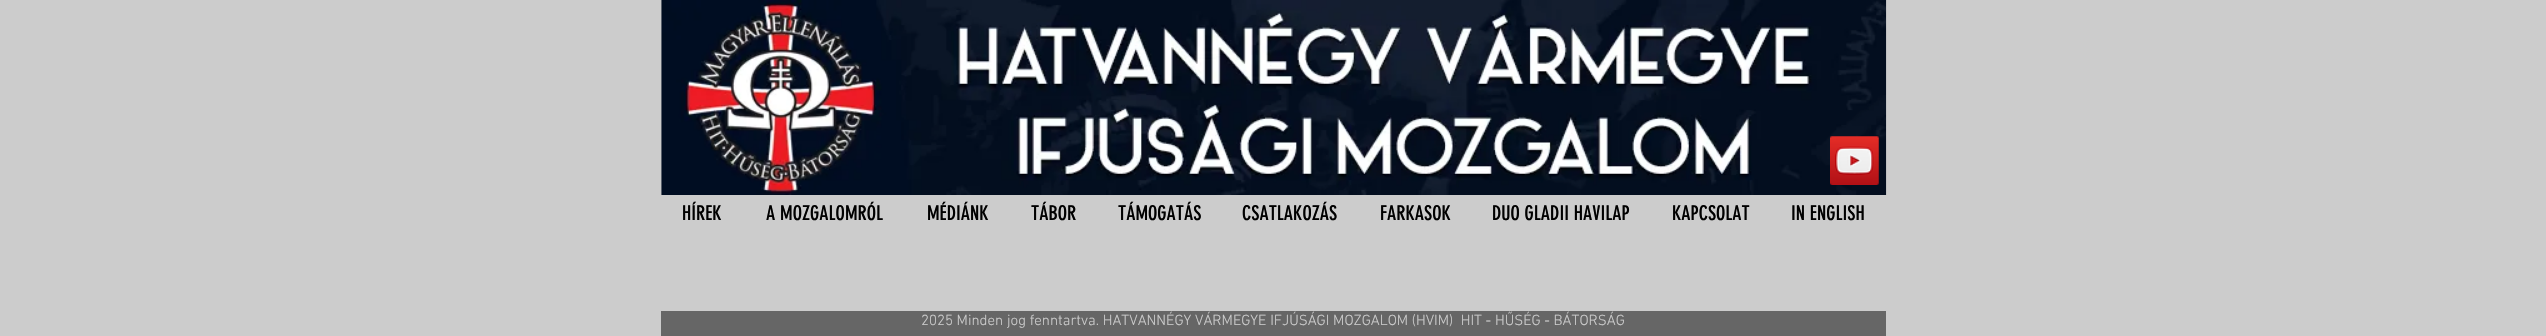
void draw(SkCanvas* c) {
SkPaint p;
p.setAntiAlias(true);
auto F=[&](const char* family, int weight, float size, bool italic = false){SkFontStyle style(weight, SkFontStyle::kNormal_Width,italic ? SkFontStyle::kItalic_Slant : SkFontStyle::kUpright_Slant);SkFont result(fontMgr->matchFamilyStyle(family, style), size);result.setSubpixel(true);return result;};
auto T=[&](const char* s, float x, float y, const SkFont& font){c->drawString(s, x, y, font, p);};
auto R=[&](float x, float y, float w, float h){c->drawRect(SkRect::MakeXYWH(x, y, w, h), p);};
auto I=[&](const char* path, float x, float y, float w, float h){auto image = SkImages::DeferredFromEncodedData(SkData::MakeFromFileName(path));c->drawImageRect(image, SkRect::MakeXYWH(x, y, w, h), SkSamplingOptions());};
c->clear(0xffcccccc);
I("1.png",661,0,1226,195);
I("2.png",1830,136,49,49);
auto f1 = F("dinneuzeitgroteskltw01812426",400,20);
p.setColor(0xff000000);
T("HÍREK",682,220,f1);
T("A MOZGALOMRÓL",766,220,f1);
T("MÉDIÁNK",927,220,f1);
T("TÁBOR",1031,220,f1);
T("TÁMOGATÁS",1118,220,f1);
T("CSATLAKOZÁS",1242,220,f1);
T("FARKASOK",1380,220,f1);
T("DUO GLADII HAVILAP",1492,220,f1);
T("KAPCSOLAT",1672,220,f1);
T("IN ENGLISH",1791,220,f1);
p.setColor(0xff666666);
R(661,311,1225,25);
auto f2 = F("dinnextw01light",300,15);
p.setColor(0xffcccccc);
T("2025 Minden jog fenntartva. HATVANNÉGY VÁRMEGYE IFJÚSÁGI MOZGALOM (HVIM)  HIT - HŰSÉG - BÁTORSÁG",921,325,f2);
}
